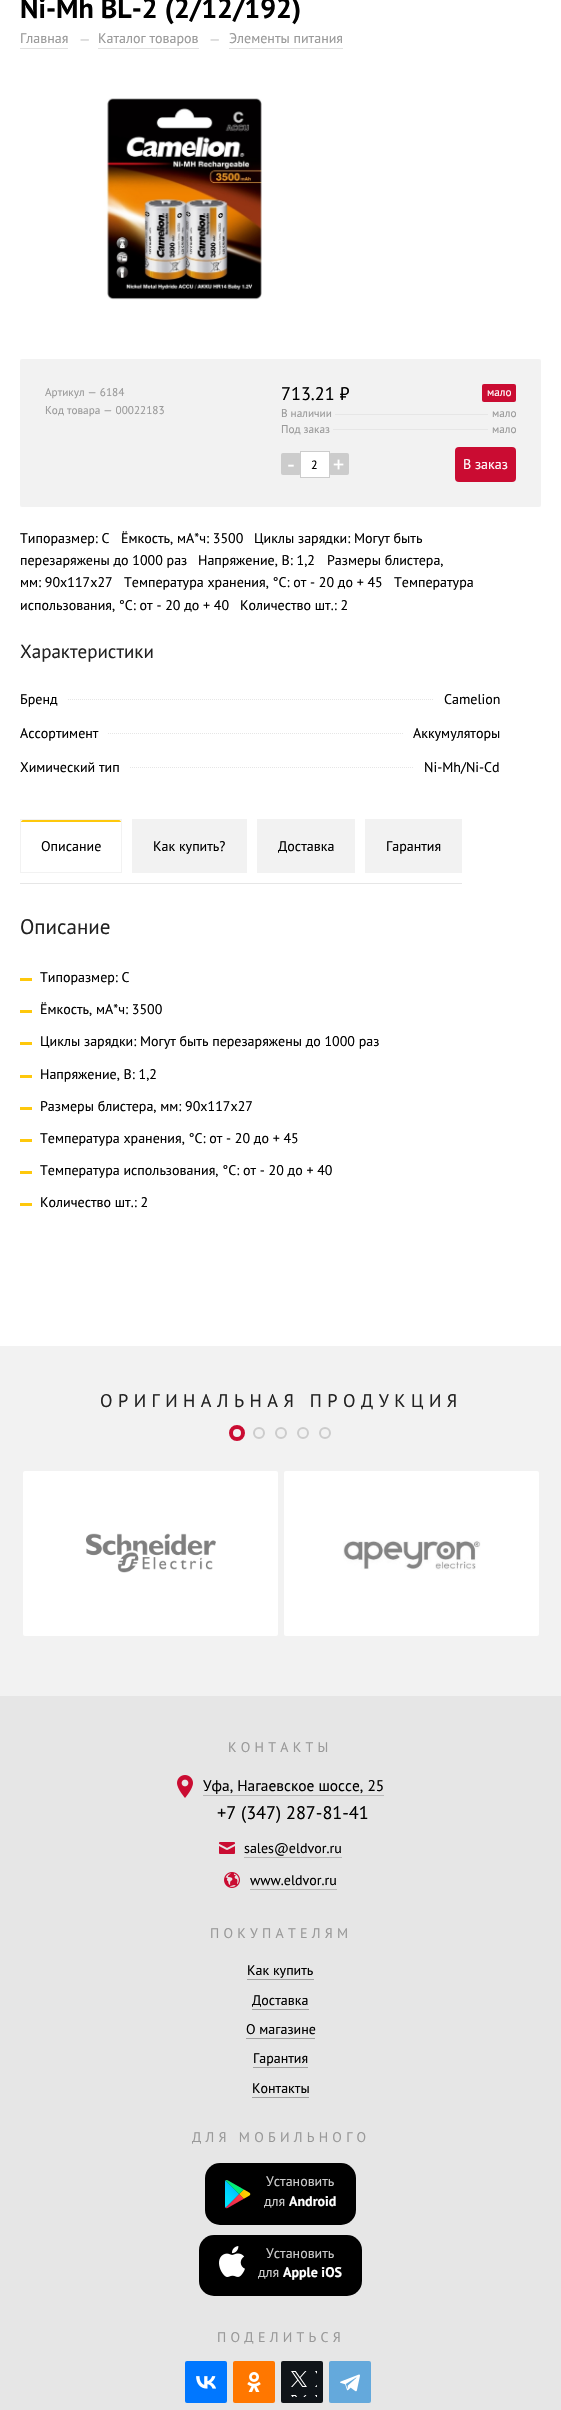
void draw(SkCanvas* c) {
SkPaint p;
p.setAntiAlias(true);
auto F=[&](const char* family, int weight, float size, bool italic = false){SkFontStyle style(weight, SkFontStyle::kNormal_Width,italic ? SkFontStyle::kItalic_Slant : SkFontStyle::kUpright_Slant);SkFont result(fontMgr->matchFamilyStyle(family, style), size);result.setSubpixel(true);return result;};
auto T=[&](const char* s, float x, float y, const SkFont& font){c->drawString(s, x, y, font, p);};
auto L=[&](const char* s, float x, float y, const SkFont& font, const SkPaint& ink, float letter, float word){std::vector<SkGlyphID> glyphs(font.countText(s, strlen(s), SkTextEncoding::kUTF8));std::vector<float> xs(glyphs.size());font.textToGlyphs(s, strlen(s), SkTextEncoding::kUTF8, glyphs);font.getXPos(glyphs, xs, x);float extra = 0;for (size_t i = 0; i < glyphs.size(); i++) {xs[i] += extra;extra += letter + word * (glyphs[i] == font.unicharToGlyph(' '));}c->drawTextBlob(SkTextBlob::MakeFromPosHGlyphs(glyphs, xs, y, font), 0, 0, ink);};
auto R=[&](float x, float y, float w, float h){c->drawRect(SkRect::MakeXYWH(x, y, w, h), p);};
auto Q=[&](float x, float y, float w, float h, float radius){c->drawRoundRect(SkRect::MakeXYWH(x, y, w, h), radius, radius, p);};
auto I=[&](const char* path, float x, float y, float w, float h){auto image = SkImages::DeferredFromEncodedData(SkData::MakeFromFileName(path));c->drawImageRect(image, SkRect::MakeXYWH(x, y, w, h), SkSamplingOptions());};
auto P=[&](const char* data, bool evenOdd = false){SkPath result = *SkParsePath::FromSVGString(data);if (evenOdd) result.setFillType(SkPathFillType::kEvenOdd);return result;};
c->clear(0xffffffff);
auto f1 = F("PT Sans",700,28);
p.setColor(0xff000000);
T("Ni-Mh BL-2 (2/12/192)",20,18,f1);
auto f2 = F("PT Sans",400,14);
p.setColor(0xff999999);
T("Главная",20,43,f2);
p.setColor(0xffe0e0e0);
R(20,48,48,1);
p.setColor(0xffcccccc);
T("—",79,44,f2);
p.setColor(0xff999999);
T("Каталог товаров",98,43,f2);
p.setColor(0xffe0e0e0);
R(98,48,101,1);
p.setColor(0xffcccccc);
T("—",209,44,f2);
p.setColor(0xff999999);
T("Элементы питания",229,43,f2);
p.setColor(0xffe0e0e0);
R(229,48,114,1);
I("1.png",106,98,156,202);
p.setColor(0xfff2f2f2);
Q(20,359,521,148,2);
auto f3 = F("PT Sans",400,11.25);
p.setColor(0xff999999);
T("Артикул — 6184",45,396,f3);
T("Код товара — 00022183",45,414,f3);
auto f4 = F("PT Sans",400,18.25);
p.setColor(0xff000000);
T("713.21 ₽",281,400,f4);
p.setColor(0xffca0c32);
Q(482,384,34,18,2);
p.setColor(0xffffffff);
T("мало",487,396,f3);
p.setColor(0xff999999);
T("В наличии",281,417,f3);
p.setColor(0xffe6e6e6);
R(335,414,153,1);
p.setColor(0xff999999);
T("мало",492,417,f3);
T("Под заказ",281,433,f3);
p.setColor(0xffe6e6e6);
R(333,429,155,1);
p.setColor(0xff999999);
T("мало",492,433,f3);
p.setColor(0xffcccccc);
Q(281,453,20,22,2);
auto f5 = F("PT Sans",400,22);
p.setColor(0xffffffff);
T("-",287,472,f5);
c->drawRect(SkRect::MakeXYWH(300.5,451.5,29,26),p);
p.setStroke(true);
p.setStrokeWidth(1);
p.setColor(0xffcccccc);
c->drawRect(SkRect::MakeXYWH(300.5,451.5,29,26),p);
auto f6 = F("PT Sans",400,12);
p.setStroke(false);
p.setColor(0xff000000);
T("2",311,469,f6);
p.setColor(0xffcccccc);
Q(329,453,20,22,2);
p.setColor(0xffffffff);
T("+",333,472,f5);
p.setColor(0xffca0c32);
Q(455,447,61,35,4);
p.setColor(0xffffffff);
T("В заказ",463,469,f2);
p.setColor(0xff000000);
T("Типоразмер: C",20,543,f2);
T("Ёмкость, мА*ч: 3500",121,543,f2);
T("Циклы зарядки: Могут быть",254,543,f2);
T("перезаряжены до 1000 раз",20,565,f2);
T("Напряжение, В: 1,2",198,565,f2);
T("Размеры блистера,",327,565,f2);
T("мм: 90x117x27",20,587,f2);
T("Температура хранения, °C: от - 20 до + 45",124,587,f2);
T("Температура",394,587,f2);
T("использования, °C: от - 20 до + 40",20,610,f2);
T("Количество шт.: 2",240,610,f2);
auto f7 = F("PT Sans",400,19);
p.setColor(0xff222222);
T("Характеристики",20,658,f7);
c->save();
c->clipRect(SkRect::MakeXYWH(20,677,480,102));
p.setStroke(true);
p.setColor(0xffe6e6e6);
p.setPathEffect(SkDashPathEffect::Make({{1,1}}, 0));
c->drawPath(P("M10 699.5h500"),p);
p.setPathEffect(nullptr);
c->restore();
p.setStroke(false);
p.setColor(0xffffffff);
R(20,699,47,1);
p.setColor(0xff000000);
T("Бренд",20,704,f2);
p.setColor(0xffffffff);
R(434,699,65,1);
p.setColor(0xff000000);
T("Camelion",444,704,f2);
c->save();
c->clipRect(SkRect::MakeXYWH(20,677,480,102));
p.setStroke(true);
p.setColor(0xffe6e6e6);
p.setPathEffect(SkDashPathEffect::Make({{1,1}}, 0));
c->drawPath(P("M10 733.5h500"),p);
p.setPathEffect(nullptr);
c->restore();
p.setStroke(false);
p.setColor(0xffffffff);
R(20,733,87,1);
p.setColor(0xff000000);
T("Ассортимент",20,738,f2);
p.setColor(0xffffffff);
R(404,733,95,1);
p.setColor(0xff000000);
T("Аккумуляторы",413,738,f2);
c->save();
c->clipRect(SkRect::MakeXYWH(20,677,480,102));
p.setStroke(true);
p.setColor(0xffe6e6e6);
p.setPathEffect(SkDashPathEffect::Make({{1,1}}, 0));
c->drawPath(P("M10 767.5h500"),p);
p.setPathEffect(nullptr);
c->restore();
p.setStroke(false);
p.setColor(0xffffffff);
R(20,767,109,1);
p.setColor(0xff000000);
T("Химический тип",20,772,f2);
p.setColor(0xffffffff);
R(414,767,85,1);
p.setColor(0xff000000);
T("Ni-Mh/Ni-Cd",424,772,f2);
p.setStroke(true);
p.setColor(0xfff2f2f2);
c->drawRect(SkRect::MakeXYWH(20.5,819.5,101,53),p);
p.setStroke(false);
p.setColor(0xfffec80c);
c->drawPath(P("M23 820h96c1 0 2 1 2 2h-100c0-1 1-2 2-2z"),p);
p.setColor(0xff000000);
T("Описание",41,851,f2);
p.setColor(0xfff2f2f2);
R(132,819,115,54);
p.setColor(0xff000000);
T("Как купить?",153,851,f2);
p.setColor(0xfff2f2f2);
R(257,819,98,54);
p.setColor(0xff000000);
T("Доставка",278,851,f2);
p.setColor(0xfff2f2f2);
R(365,819,97,54);
p.setColor(0xff000000);
T("Гарантия",386,851,f2);
p.setColor(0xffe6e6e6);
R(20,883,442,1);
auto f8 = F("PT Sans",400,21);
p.setColor(0xff222222);
T("Описание",20,934,f8);
p.setColor(0xfffec80c);
R(20,978,12,3);
p.setColor(0xff000000);
T("Типоразмер: C",40,982,f2);
p.setColor(0xfffec80c);
R(20,1010,12,3);
p.setColor(0xff000000);
T("Ёмкость, мА*ч: 3500",40,1014,f2);
p.setColor(0xfffec80c);
R(20,1042,12,3);
p.setColor(0xff000000);
T("Циклы зарядки: Могут быть перезаряжены до 1000 раз",40,1046,f2);
p.setColor(0xfffec80c);
R(20,1075,12,3);
p.setColor(0xff000000);
T("Напряжение, В: 1,2",40,1079,f2);
p.setColor(0xfffec80c);
R(20,1107,12,3);
p.setColor(0xff000000);
T("Размеры блистера, мм: 90x117x27",40,1111,f2);
p.setColor(0xfffec80c);
R(20,1139,12,3);
p.setColor(0xff000000);
T("Температура хранения, °C: от - 20 до + 45",40,1143,f2);
p.setColor(0xfffec80c);
R(20,1171,12,3);
p.setColor(0xff000000);
T("Температура использования, °C: от - 20 до + 40",40,1175,f2);
p.setColor(0xfffec80c);
R(20,1203,12,3);
p.setColor(0xff000000);
T("Количество шт.: 2",40,1207,f2);
p.setColor(0xfff2f2f2);
R(0,1346,561,350);
p.setColor(0xff222222);
L("ОРИГИНАЛЬНАЯ ПРОДУКЦИЯ",100,1407,f4,p,5.5,0);
p.setStroke(true);
p.setStrokeWidth(4);
p.setColor(0xffca0c32);
c->drawCircle(237,1433,6,p);
p.setStrokeWidth(2);
p.setColor(0xffcccccc);
c->drawCircle(259,1433,5,p);
c->drawCircle(281,1433,5,p);
c->drawCircle(303,1433,5,p);
c->drawCircle(325,1433,5,p);
p.setStroke(false);
p.setColor(0xffffffff);
Q(23,1471,255,165,2);
I("2.png",86,1533,130,40);
Q(284,1471,255,165,2);
I("3.png",343,1540,138,30);
p.setColor(0xffe6e6e6);
R(0,1696,561,714);
p.setColor(0xff999999);
L("КОНТАКТЫ",228,1752,f2,p,4.25,0);
I("4.png",177,1775,16,23);
auto f9 = F("PT Sans",400,15.4);
p.setColor(0xff000000);
T("Уфа, Нагаевское шоссе, 25",203,1791,f9);
p.setColor(0xffb8b8b8);
R(203,1795,181,1);
p.setColor(0xff000000);
T("+7 (347) 287-81-41",217,1819,f4);
I("5.png",219,1842,16,12);
T("sales@eldvor.ru",244,1853,f2);
p.setColor(0xffb8b8b8);
R(244,1857,98,1);
I("6.png",224,1872,16,16);
p.setColor(0xff000000);
T("www.eldvor.ru",250,1885,f2);
p.setColor(0xffb8b8b8);
R(250,1889,87,1);
p.setColor(0xff999999);
L("ПОКУПАТЕЛЯМ",210,1938,f2,p,4.25,0);
p.setColor(0xff000000);
T("Как купить",247,1975,f2);
p.setColor(0xffa1a1a1);
R(247,1979,67,1);
p.setColor(0xff000000);
T("Доставка",252,2005,f2);
p.setColor(0xffa1a1a1);
R(252,2009,57,1);
p.setColor(0xff000000);
T("О магазине",246,2034,f2);
p.setColor(0xffa1a1a1);
R(246,2038,69,1);
p.setColor(0xff000000);
T("Гарантия",253,2063,f2);
p.setColor(0xffa1a1a1);
R(253,2067,55,1);
p.setColor(0xff000000);
T("Контакты",252,2093,f2);
p.setColor(0xffa1a1a1);
R(252,2097,57,1);
p.setColor(0xff999999);
L("ДЛЯ МОБИЛЬНОГО",192,2142,f2,p,4.25,0);
p.setColor(0xff000000);
Q(205,2163,151,62,15);
I("7.png",225,2180,26,29);
p.setColor(0xffcccccc);
T("Установить",266,2186,f2);
T("для",264,2206,f2);
auto f10 = F("PT Sans",700,14);
p.setColor(0xffffffff);
T("Android",289,2206,f10);
p.setColor(0xff000000);
Q(199,2235,163,61,15);
I("8.png",219,2246,26,31);
p.setColor(0xffcccccc);
T("Установить",266,2258,f2);
T("для",258,2277,f2);
p.setColor(0xffffffff);
T("Apple iOS",283,2277,f10);
p.setColor(0xff999999);
L("ПОДЕЛИТЬСЯ",217,2342,f2,p,4.25,0);
p.setColor(0xff0077ff);
Q(185,2361,42,42,2);
I("9.png",196,2376,20,13);
p.setColor(0xffff7700);
Q(233,2361,42,42,2);
I("10.png",247,2372,14,20);
p.setColor(0xff0f1419);
Q(281,2361,42,42,2);
I("11.png",291,2371,26,26);
p.setColor(0xff64a9dc);
Q(329,2361,42,42,2);
I("12.png",340,2374,20,18);
}
